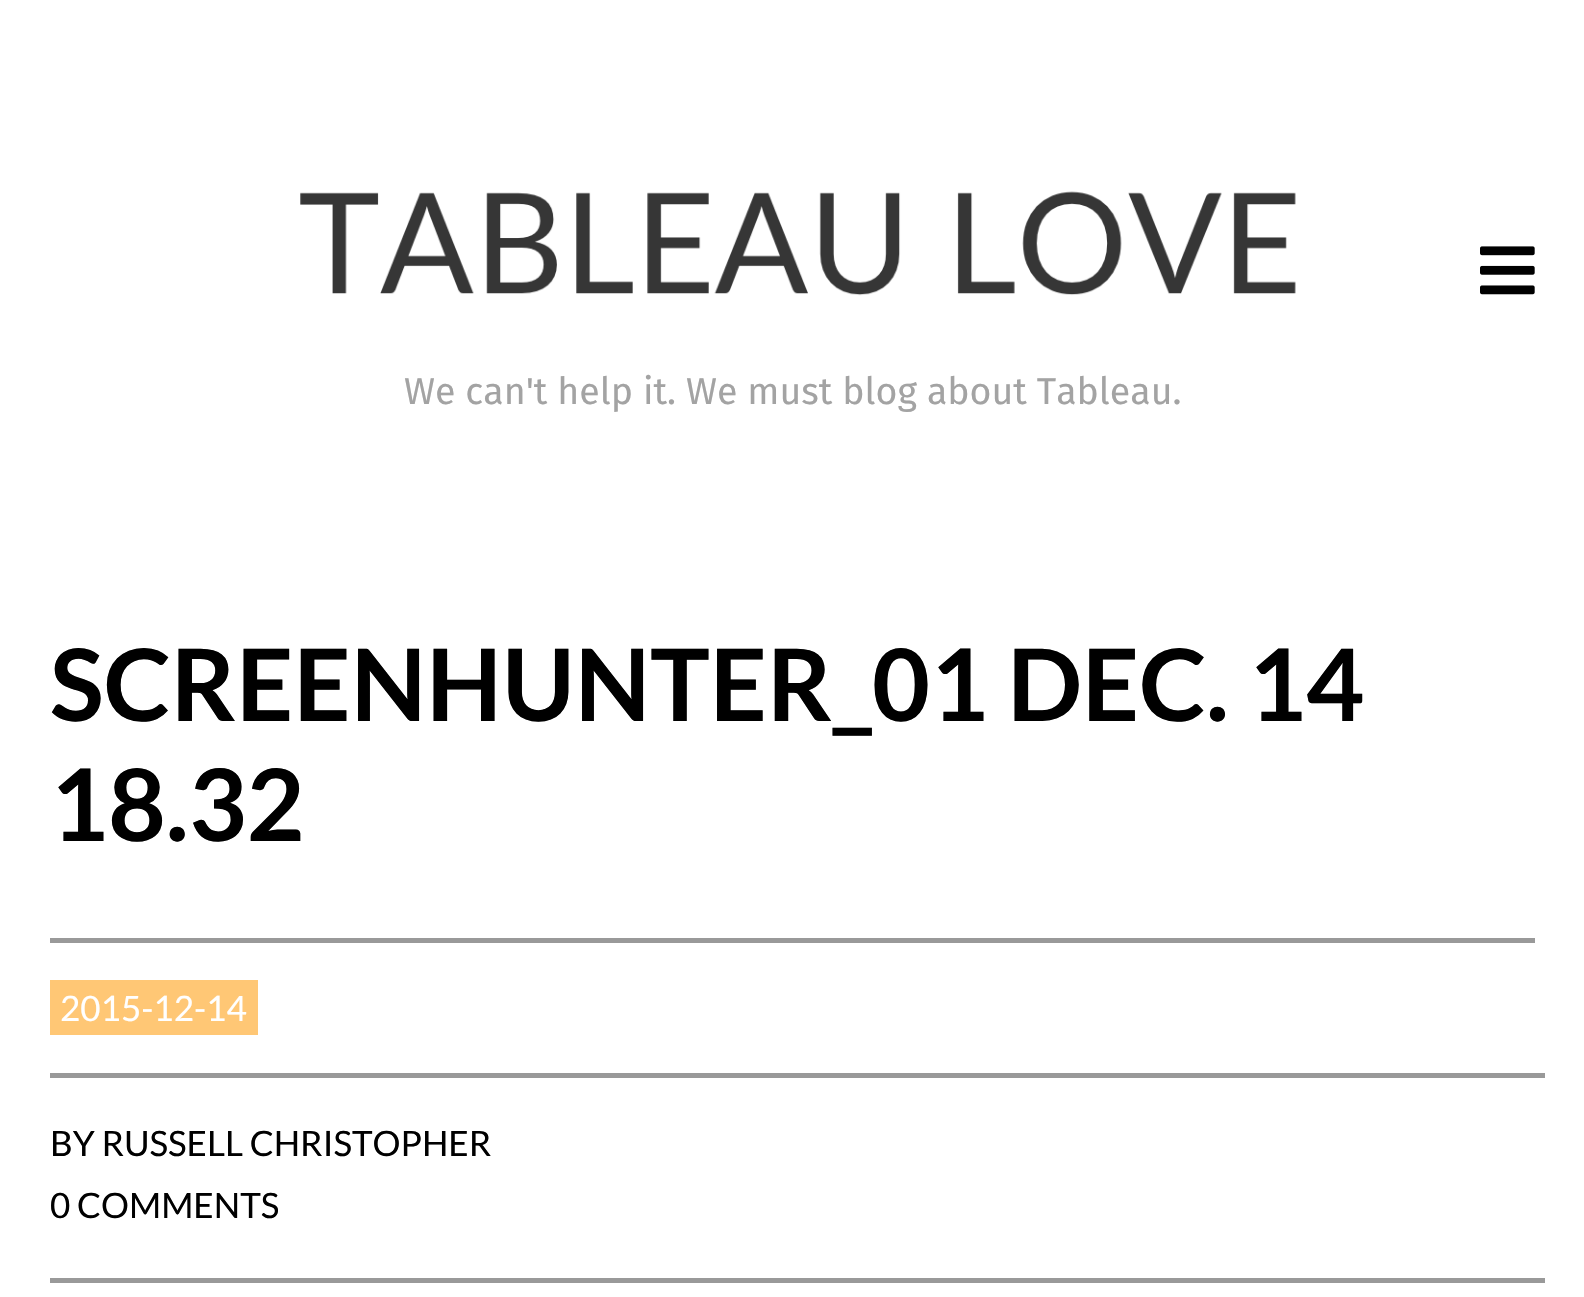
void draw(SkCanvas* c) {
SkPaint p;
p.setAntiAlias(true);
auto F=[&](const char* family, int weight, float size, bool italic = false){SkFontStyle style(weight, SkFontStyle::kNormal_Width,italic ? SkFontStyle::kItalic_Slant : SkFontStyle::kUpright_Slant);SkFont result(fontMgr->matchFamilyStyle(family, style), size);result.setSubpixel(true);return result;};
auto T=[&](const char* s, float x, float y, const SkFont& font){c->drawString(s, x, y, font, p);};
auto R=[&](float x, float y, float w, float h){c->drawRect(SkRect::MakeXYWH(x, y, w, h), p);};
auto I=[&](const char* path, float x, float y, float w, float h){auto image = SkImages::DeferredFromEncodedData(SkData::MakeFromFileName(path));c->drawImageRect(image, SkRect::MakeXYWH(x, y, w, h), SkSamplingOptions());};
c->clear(0xffffffff);
I("1.png",1480,246,55,49);
I("2.png",300,191,996,105);
auto f1 = F("Fira Sans",400,37.5);
p.setColor(0xffa3a3a3);
T("We can't help it. We must blog about Tableau.",404,404,f1);
auto f2 = F("Lato",700,100);
p.setColor(0xff000000);
T("SCREENHUNTER_01 DEC. 14",50,721,f2);
T("18.32",50,841,f2);
p.setColor(0xff999999);
R(50,938,1485,5);
R(50,1073,1495,5);
p.setColor(0xffffc775);
R(50,980,208,55);
auto f3 = F("Lato",400,35);
p.setColor(0xffffffff);
T("2015-12-14",60,1021,f3);
p.setColor(0xff999999);
R(50,1278,1495,5);
p.setColor(0xff000000);
T("BY RUSSELL CHRISTOPHER",50,1156,f3);
T("0 COMMENTS",50,1218,f3);
}
